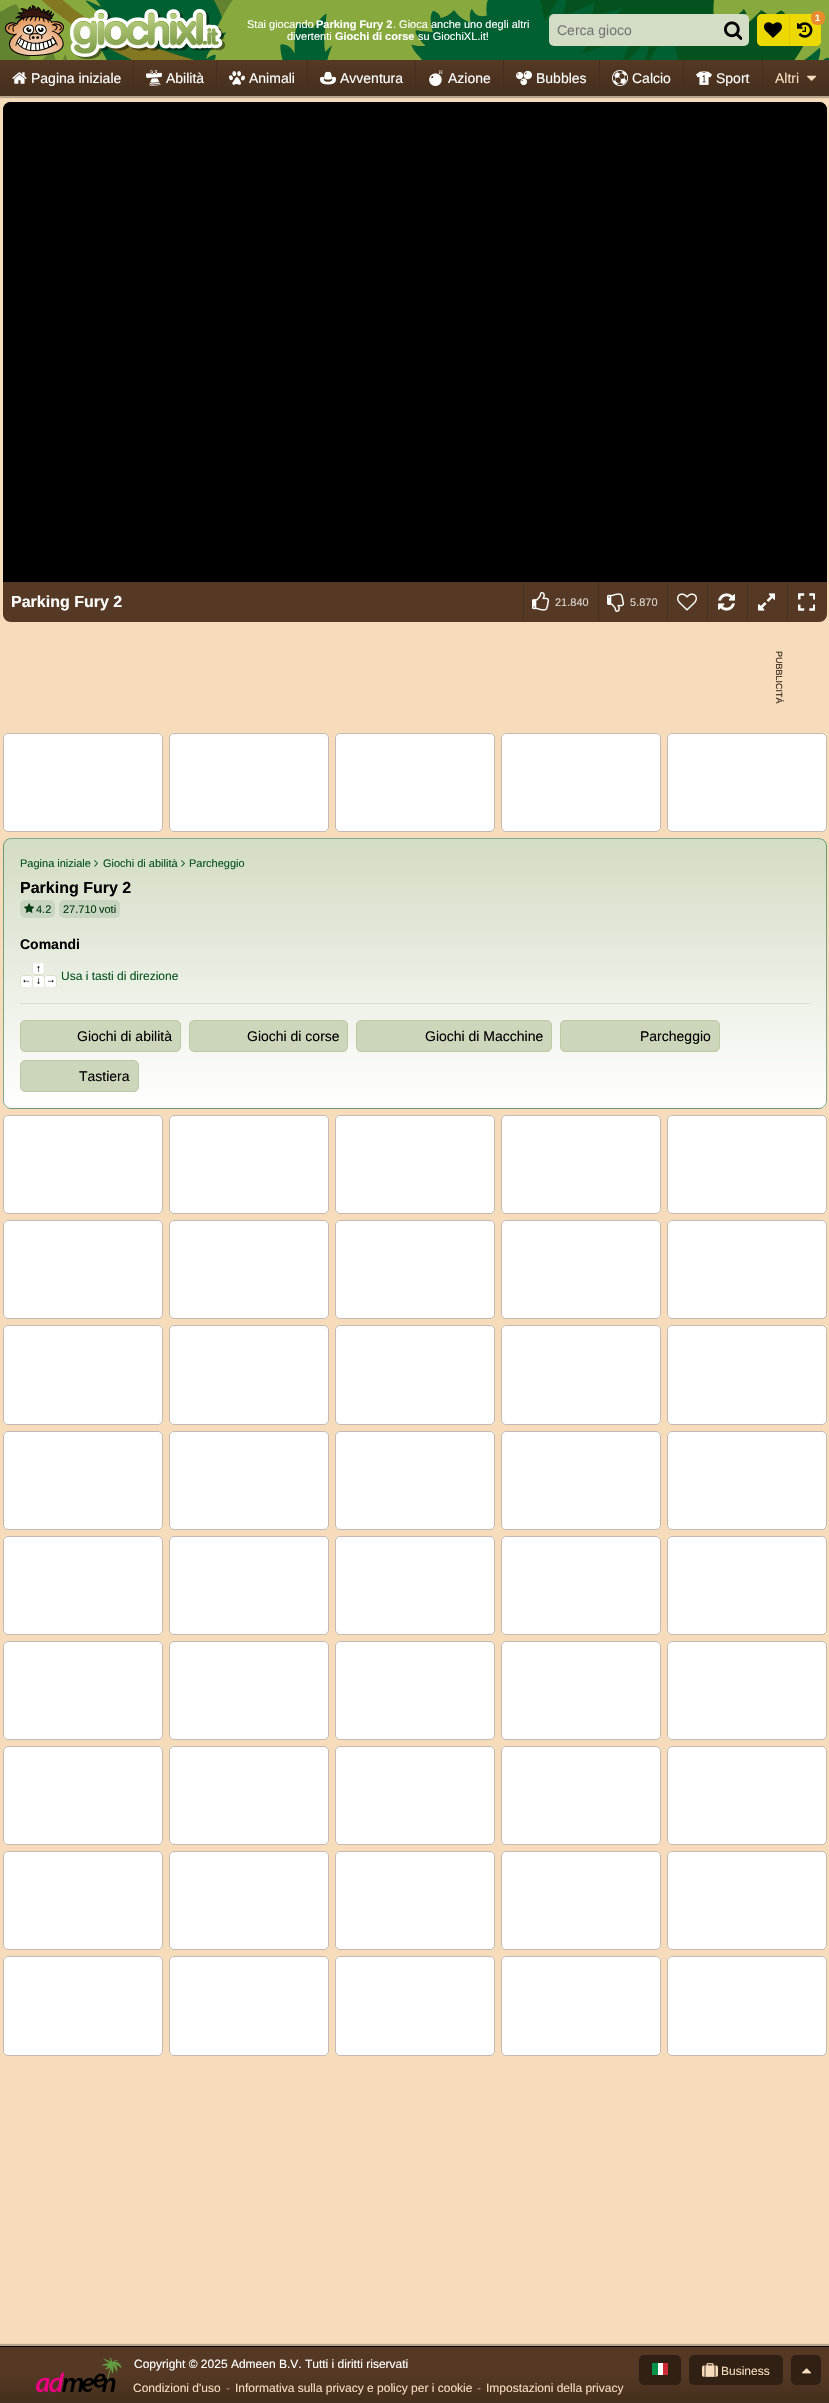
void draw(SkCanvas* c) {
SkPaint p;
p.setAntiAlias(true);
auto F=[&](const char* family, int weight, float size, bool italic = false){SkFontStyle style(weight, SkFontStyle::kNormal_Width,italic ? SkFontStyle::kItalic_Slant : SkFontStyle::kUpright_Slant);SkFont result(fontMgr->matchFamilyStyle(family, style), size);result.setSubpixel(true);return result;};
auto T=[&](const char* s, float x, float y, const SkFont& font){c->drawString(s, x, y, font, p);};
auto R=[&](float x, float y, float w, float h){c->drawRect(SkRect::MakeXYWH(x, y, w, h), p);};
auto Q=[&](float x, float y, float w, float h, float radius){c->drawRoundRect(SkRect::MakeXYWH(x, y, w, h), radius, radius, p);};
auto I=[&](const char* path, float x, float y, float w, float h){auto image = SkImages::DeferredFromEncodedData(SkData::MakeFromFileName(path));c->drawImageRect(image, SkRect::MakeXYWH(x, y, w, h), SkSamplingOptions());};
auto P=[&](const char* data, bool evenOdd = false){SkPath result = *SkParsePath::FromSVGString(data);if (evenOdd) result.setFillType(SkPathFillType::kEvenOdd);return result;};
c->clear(0xfff7dcbc);
p.setColor(0x40000000);
p.setMaskFilter(SkMaskFilter::MakeBlur(kNormal_SkBlurStyle, .5));
c->drawRect(SkRect::MakeXYWH(-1,60,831,38),p);
p.setMaskFilter(nullptr);
p.setColor(0xff638331);
R(0,0,233,60);
I("1.png",0,0,829,60);
I("2.png",5,5,220,54);
p.setColor(0xffecd901);
c->drawPath(P("M762 14h27v32h-27c-3 0-5-2-5-5v-22c0-3 2-5 5-5z"),p);
I("3.png",764,22,18,16);
c->drawPath(P("M789 14h27c3 0 5 2 5 5v22c0 3-2 5-5 5h-27z"),p);
p.setColor(0xffd8c601);
c->drawPath(P("M789 14v32l1-1v-30z"),p);
I("4.png",797,22,16,16);
p.setColor(0xffe98b2c);
Q(811,11,14,14,6);
auto f1 = F("Liberation Sans",700,9);
p.setColor(0xffffffff);
T("1",815,21,f1);
auto f2 = F("Liberation Sans",400,11);
T("Stai giocando",247,28,f2);
auto f3 = F("Liberation Sans",700,11);
T("Parking Fury 2",316,28,f3);
T(". Gioca anche uno degli altri",393,28,f2);
T("divertenti",287,40,f2);
T("Giochi di corse",335,40,f3);
T("su GiochiXL.it!",418,40,f2);
p.setColor(0xffd3dcc4);
Q(549,14,200,32,5);
auto f4 = F("Liberation Sans",400,14);
p.setColor(0xff757575);
T("Cerca gioco",557,35,f4);
I("5.png",724,21,18,19);
{
const SkColor colors[] = {0xff553924,0xff442e1d};
const float stops[] = {0,1};
const SkPoint ends[] = {{415,60}, {415,96}};
p.setShader(SkGradientShader::MakeLinear(ends, colors, stops, 2, SkTileMode::kClamp));
p.setAlpha(255);
}
R(0,60,829,36);
I("6.png",12,72,15,12);
p.setShader(nullptr);
p.setColor(0xffffffff);
T("Pagina iniziale",31,83,f4);
p.setColor(0xff462f1e);
R(133,60,1,26);
I("7.png",146,70,16,16);
p.setColor(0xffffffff);
T("Abilità",166,83,f4);
p.setColor(0xff462f1e);
R(216,60,1,26);
I("8.png",229,71,16,14);
p.setColor(0xffffffff);
T("Animali",249,83,f4);
p.setColor(0xff462f1e);
R(307,60,1,26);
I("9.png",320,71,16,14);
p.setColor(0xffffffff);
T("Avventura",340,83,f4);
p.setColor(0xff462f1e);
R(415,60,1,26);
I("10.png",429,70,14,16);
p.setColor(0xffffffff);
T("Azione",448,83,f4);
p.setColor(0xff462f1e);
R(503,60,1,26);
I("11.png",516,70,16,16);
p.setColor(0xffffffff);
T("Bubbles",536,83,f4);
p.setColor(0xff462f1e);
R(599,60,1,26);
I("12.png",612,70,16,16);
p.setColor(0xffffffff);
T("Calcio",632,83,f4);
p.setColor(0xff462f1e);
R(683,60,1,26);
I("13.png",696,71,16,14);
p.setColor(0xffffffff);
T("Sport",716,83,f4);
p.setColor(0xff462f1e);
c->drawPath(P("M762 96v-36l1 1v34z"),p);
p.setColor(0xfff7dcbc);
T("Altri",775,83,f4);
I("14.png",807,75,9,6);
p.setColor(0xff000000);
c->drawPath(P("M11 102h808c4.5 0 8 3.5 8 8v472h-824v-472c0-4.5 3.5-8 8-8z"),p);
I("15.png",3,102,824,8);
p.setColor(0xff553924);
c->drawPath(P("M3 582h824v32c0 4.5-3.5 8-8 8h-808c-4.5 0-8-3.5-8-8z"),p);
auto f5 = F("Liberation Sans",700,16);
p.setColor(0xffffffff);
T("Parking Fury 2",11,607,f5);
p.setColor(0xff462f1e);
c->drawPath(P("M523 622v-40l1 1v38z"),p);
I("16.png",532,592,18,19);
p.setColor(0xffddd7d3);
T("21.840",555,606,f2);
p.setColor(0xff462f1e);
c->drawPath(P("M598 622v-40l1 1v38z"),p);
I("17.png",607,593,18,19);
p.setColor(0xffddd7d3);
T("5.870",630,606,f2);
p.setColor(0xff462f1e);
c->drawPath(P("M667 622v-40l1 1v38zm40 0v-40l1 1v38z"),p);
I("18.png",677,593,20,18);
I("19.png",718,593,17,18);
c->drawPath(P("M747 622v-40l1 1v38zm40-40v40l1-1v-38z"),p);
I("20.png",758,593,17,18);
I("21.png",798,593,17,18);
auto f6 = F("Liberation Sans",400,9);
p.setColor(0xff312115);
c->save();
c->rotate(90,776,651);
T("PUBBLICITÁ",776,651,f6);
c->restore();
p.setColor(0xffffffff);
Q(3,733,160,99,5);
p.setStroke(true);
p.setStrokeWidth(1);
p.setColor(0x59553924);
c->drawRoundRect(SkRect::MakeXYWH(3.5,733.5,159,98),4.5,4.5,p);
p.setStroke(false);
p.setColor(0xffffffff);
Q(169,733,160,99,5);
p.setStroke(true);
p.setColor(0x59553924);
c->drawRoundRect(SkRect::MakeXYWH(169.5,733.5,159,98),4.5,4.5,p);
p.setStroke(false);
p.setColor(0xffffffff);
Q(335,733,160,99,5);
p.setStroke(true);
p.setColor(0x59553924);
c->drawRoundRect(SkRect::MakeXYWH(335.5,733.5,159,98),4.5,4.5,p);
p.setStroke(false);
p.setColor(0xffffffff);
Q(501,733,160,99,5);
p.setStroke(true);
p.setColor(0x59553924);
c->drawRoundRect(SkRect::MakeXYWH(501.5,733.5,159,98),4.5,4.5,p);
p.setStroke(false);
p.setColor(0xffffffff);
Q(667,733,160,99,5);
p.setStroke(true);
p.setColor(0x59553924);
c->drawRoundRect(SkRect::MakeXYWH(667.5,733.5,159,98),4.5,4.5,p);
c->save();
c->clipPath(P("M11 838h808c4.5 0 8 3.5 8 8v255c0 4.5-3.5 8-8 8h-808c-4.5 0-8-3.5-8-8v-255c0-4.5 3.5-8 8-8z"),true);
p.setStroke(false);
{
const SkColor colors[] = {0xffd3dcc4,0xffffffff};
const float stops[] = {0,1};
const SkPoint ends[] = {{415,570}, {415,839}};
p.setShader(SkGradientShader::MakeLinear(ends, colors, stops, 2, SkTileMode::kClamp));
p.setAlpha(255);
}
R(3,838,824,1);
{
const SkColor colors[] = {0xffd3dcc4,0xffffffff};
const float stops[] = {0,1};
const SkPoint ends[] = {{415,839}, {415,1108}};
p.setShader(SkGradientShader::MakeLinear(ends, colors, stops, 2, SkTileMode::kClamp));
p.setAlpha(255);
}
R(3,839,824,269);
{
const SkColor colors[] = {0xffd3dcc4,0xffffffff};
const float stops[] = {0,1};
const SkPoint ends[] = {{415,1108}, {415,1377}};
p.setShader(SkGradientShader::MakeLinear(ends, colors, stops, 2, SkTileMode::kClamp));
p.setAlpha(255);
}
R(3,1108,824,1);
c->restore();
p.setStroke(true);
p.setShader(nullptr);
p.setColor(0x8005531f);
c->drawRoundRect(SkRect::MakeXYWH(3.5,838.5,823,270),7.5,7.5,p);
p.setStroke(false);
p.setColor(0xff05531f);
T("Pagina iniziale",20,867,f2);
I("22.png",94,860,4,7);
T("Giochi di abilità",103,867,f2);
I("22.png",181,860,4,7);
T("Parcheggio",189,867,f2);
p.setColor(0xff000000);
T("Parking Fury 2",20,893,f5);
p.setColor(0x1a05531f);
Q(20,900,35,18,5);
I("23.png",24,903,10,10);
p.setColor(0xff043b16);
T("4.2",36,913,f2);
p.setColor(0x1a05531f);
Q(59,900,61,18,5);
p.setColor(0xff043b16);
T("27.710",63,913,f2);
T("voti",99,913,f2);
auto f7 = F("Liberation Sans",700,14);
p.setColor(0xff000000);
T("Comandi",20,949,f7);
I("24.png",20,963,37,24);
auto f8 = F("Liberation Sans",400,12);
p.setColor(0xff05531f);
T("Usa i tasti di direzione",61,980,f8);
p.setColor(0xffdbded5);
R(20,1003,790,1);
p.setColor(0xffccd6ba);
c->drawRoundRect(SkRect::MakeXYWH(20.5,1020.5,160,31),4.5,4.5,p);
p.setStroke(true);
p.setColor(0xffbbc9a4);
c->drawRoundRect(SkRect::MakeXYWH(20.5,1020.5,160,31),4.5,4.5,p);
p.setStroke(false);
p.setColor(0xff000000);
T("Giochi di abilità",77,1041,f4);
p.setColor(0xffccd6ba);
c->drawRoundRect(SkRect::MakeXYWH(189.5,1020.5,158,31),4.5,4.5,p);
p.setStroke(true);
p.setColor(0xffbbc9a4);
c->drawRoundRect(SkRect::MakeXYWH(189.5,1020.5,158,31),4.5,4.5,p);
p.setStroke(false);
p.setColor(0xff000000);
T("Giochi di corse",247,1041,f4);
p.setColor(0xffccd6ba);
c->drawRoundRect(SkRect::MakeXYWH(356.5,1020.5,195,31),4.5,4.5,p);
p.setStroke(true);
p.setColor(0xffbbc9a4);
c->drawRoundRect(SkRect::MakeXYWH(356.5,1020.5,195,31),4.5,4.5,p);
p.setStroke(false);
p.setColor(0xff000000);
T("Giochi di Macchine",425,1041,f4);
p.setColor(0xffccd6ba);
c->drawRoundRect(SkRect::MakeXYWH(560.5,1020.5,159,31),4.5,4.5,p);
p.setStroke(true);
p.setColor(0xffbbc9a4);
c->drawRoundRect(SkRect::MakeXYWH(560.5,1020.5,159,31),4.5,4.5,p);
p.setStroke(false);
p.setColor(0xff000000);
T("Parcheggio",640,1041,f4);
p.setColor(0xffccd6ba);
c->drawRoundRect(SkRect::MakeXYWH(20.5,1060.5,118,31),4.5,4.5,p);
p.setStroke(true);
p.setColor(0xffbbc9a4);
c->drawRoundRect(SkRect::MakeXYWH(20.5,1060.5,118,31),4.5,4.5,p);
p.setStroke(false);
p.setColor(0xff000000);
T("Tastiera",79,1081,f4);
p.setColor(0xffffffff);
Q(3,1115,160,99,5);
p.setStroke(true);
p.setColor(0x59553924);
c->drawRoundRect(SkRect::MakeXYWH(3.5,1115.5,159,98),4.5,4.5,p);
p.setStroke(false);
p.setColor(0xffffffff);
Q(169,1115,160,99,5);
p.setStroke(true);
p.setColor(0x59553924);
c->drawRoundRect(SkRect::MakeXYWH(169.5,1115.5,159,98),4.5,4.5,p);
p.setStroke(false);
p.setColor(0xffffffff);
Q(335,1115,160,99,5);
p.setStroke(true);
p.setColor(0x59553924);
c->drawRoundRect(SkRect::MakeXYWH(335.5,1115.5,159,98),4.5,4.5,p);
p.setStroke(false);
p.setColor(0xffffffff);
Q(501,1115,160,99,5);
p.setStroke(true);
p.setColor(0x59553924);
c->drawRoundRect(SkRect::MakeXYWH(501.5,1115.5,159,98),4.5,4.5,p);
p.setStroke(false);
p.setColor(0xffffffff);
Q(667,1115,160,99,5);
p.setStroke(true);
p.setColor(0x59553924);
c->drawRoundRect(SkRect::MakeXYWH(667.5,1115.5,159,98),4.5,4.5,p);
p.setStroke(false);
p.setColor(0xffffffff);
Q(3,1220,160,99,5);
p.setStroke(true);
p.setColor(0x59553924);
c->drawRoundRect(SkRect::MakeXYWH(3.5,1220.5,159,98),4.5,4.5,p);
p.setStroke(false);
p.setColor(0xffffffff);
Q(169,1220,160,99,5);
p.setStroke(true);
p.setColor(0x59553924);
c->drawRoundRect(SkRect::MakeXYWH(169.5,1220.5,159,98),4.5,4.5,p);
p.setStroke(false);
p.setColor(0xffffffff);
Q(335,1220,160,99,5);
p.setStroke(true);
p.setColor(0x59553924);
c->drawRoundRect(SkRect::MakeXYWH(335.5,1220.5,159,98),4.5,4.5,p);
p.setStroke(false);
p.setColor(0xffffffff);
Q(501,1220,160,99,5);
p.setStroke(true);
p.setColor(0x59553924);
c->drawRoundRect(SkRect::MakeXYWH(501.5,1220.5,159,98),4.5,4.5,p);
p.setStroke(false);
p.setColor(0xffffffff);
Q(667,1220,160,99,5);
p.setStroke(true);
p.setColor(0x59553924);
c->drawRoundRect(SkRect::MakeXYWH(667.5,1220.5,159,98),4.5,4.5,p);
p.setStroke(false);
p.setColor(0xffffffff);
Q(3,1325,160,100,5);
p.setStroke(true);
p.setColor(0x59553924);
c->drawRoundRect(SkRect::MakeXYWH(3.5,1325.5,159,99),4.5,4.5,p);
p.setStroke(false);
p.setColor(0xffffffff);
Q(169,1325,160,100,5);
p.setStroke(true);
p.setColor(0x59553924);
c->drawRoundRect(SkRect::MakeXYWH(169.5,1325.5,159,99),4.5,4.5,p);
p.setStroke(false);
p.setColor(0xffffffff);
Q(335,1325,160,100,5);
p.setStroke(true);
p.setColor(0x59553924);
c->drawRoundRect(SkRect::MakeXYWH(335.5,1325.5,159,99),4.5,4.5,p);
p.setStroke(false);
p.setColor(0xffffffff);
Q(501,1325,160,100,5);
p.setStroke(true);
p.setColor(0x59553924);
c->drawRoundRect(SkRect::MakeXYWH(501.5,1325.5,159,99),4.5,4.5,p);
p.setStroke(false);
p.setColor(0xffffffff);
Q(667,1325,160,100,5);
p.setStroke(true);
p.setColor(0x59553924);
c->drawRoundRect(SkRect::MakeXYWH(667.5,1325.5,159,99),4.5,4.5,p);
p.setStroke(false);
p.setColor(0xffffffff);
Q(3,1431,160,99,5);
p.setStroke(true);
p.setColor(0x59553924);
c->drawRoundRect(SkRect::MakeXYWH(3.5,1431.5,159,98),4.5,4.5,p);
p.setStroke(false);
p.setColor(0xffffffff);
Q(169,1431,160,99,5);
p.setStroke(true);
p.setColor(0x59553924);
c->drawRoundRect(SkRect::MakeXYWH(169.5,1431.5,159,98),4.5,4.5,p);
p.setStroke(false);
p.setColor(0xffffffff);
Q(335,1431,160,99,5);
p.setStroke(true);
p.setColor(0x59553924);
c->drawRoundRect(SkRect::MakeXYWH(335.5,1431.5,159,98),4.5,4.5,p);
p.setStroke(false);
p.setColor(0xffffffff);
Q(501,1431,160,99,5);
p.setStroke(true);
p.setColor(0x59553924);
c->drawRoundRect(SkRect::MakeXYWH(501.5,1431.5,159,98),4.5,4.5,p);
p.setStroke(false);
p.setColor(0xffffffff);
Q(667,1431,160,99,5);
p.setStroke(true);
p.setColor(0x59553924);
c->drawRoundRect(SkRect::MakeXYWH(667.5,1431.5,159,98),4.5,4.5,p);
p.setStroke(false);
p.setColor(0xffffffff);
Q(3,1536,160,99,5);
p.setStroke(true);
p.setColor(0x59553924);
c->drawRoundRect(SkRect::MakeXYWH(3.5,1536.5,159,98),4.5,4.5,p);
p.setStroke(false);
p.setColor(0xffffffff);
Q(169,1536,160,99,5);
p.setStroke(true);
p.setColor(0x59553924);
c->drawRoundRect(SkRect::MakeXYWH(169.5,1536.5,159,98),4.5,4.5,p);
p.setStroke(false);
p.setColor(0xffffffff);
Q(335,1536,160,99,5);
p.setStroke(true);
p.setColor(0x59553924);
c->drawRoundRect(SkRect::MakeXYWH(335.5,1536.5,159,98),4.5,4.5,p);
p.setStroke(false);
p.setColor(0xffffffff);
Q(501,1536,160,99,5);
p.setStroke(true);
p.setColor(0x59553924);
c->drawRoundRect(SkRect::MakeXYWH(501.5,1536.5,159,98),4.5,4.5,p);
p.setStroke(false);
p.setColor(0xffffffff);
Q(667,1536,160,99,5);
p.setStroke(true);
p.setColor(0x59553924);
c->drawRoundRect(SkRect::MakeXYWH(667.5,1536.5,159,98),4.5,4.5,p);
p.setStroke(false);
p.setColor(0xffffffff);
Q(3,1641,160,99,5);
p.setStroke(true);
p.setColor(0x59553924);
c->drawRoundRect(SkRect::MakeXYWH(3.5,1641.5,159,98),4.5,4.5,p);
p.setStroke(false);
p.setColor(0xffffffff);
Q(169,1641,160,99,5);
p.setStroke(true);
p.setColor(0x59553924);
c->drawRoundRect(SkRect::MakeXYWH(169.5,1641.5,159,98),4.5,4.5,p);
p.setStroke(false);
p.setColor(0xffffffff);
Q(335,1641,160,99,5);
p.setStroke(true);
p.setColor(0x59553924);
c->drawRoundRect(SkRect::MakeXYWH(335.5,1641.5,159,98),4.5,4.5,p);
p.setStroke(false);
p.setColor(0xffffffff);
Q(501,1641,160,99,5);
p.setStroke(true);
p.setColor(0x59553924);
c->drawRoundRect(SkRect::MakeXYWH(501.5,1641.5,159,98),4.5,4.5,p);
p.setStroke(false);
p.setColor(0xffffffff);
Q(667,1641,160,99,5);
p.setStroke(true);
p.setColor(0x59553924);
c->drawRoundRect(SkRect::MakeXYWH(667.5,1641.5,159,98),4.5,4.5,p);
p.setStroke(false);
p.setColor(0xffffffff);
Q(3,1746,160,99,5);
p.setStroke(true);
p.setColor(0x59553924);
c->drawRoundRect(SkRect::MakeXYWH(3.5,1746.5,159,98),4.5,4.5,p);
p.setStroke(false);
p.setColor(0xffffffff);
Q(169,1746,160,99,5);
p.setStroke(true);
p.setColor(0x59553924);
c->drawRoundRect(SkRect::MakeXYWH(169.5,1746.5,159,98),4.5,4.5,p);
p.setStroke(false);
p.setColor(0xffffffff);
Q(335,1746,160,99,5);
p.setStroke(true);
p.setColor(0x59553924);
c->drawRoundRect(SkRect::MakeXYWH(335.5,1746.5,159,98),4.5,4.5,p);
p.setStroke(false);
p.setColor(0xffffffff);
Q(501,1746,160,99,5);
p.setStroke(true);
p.setColor(0x59553924);
c->drawRoundRect(SkRect::MakeXYWH(501.5,1746.5,159,98),4.5,4.5,p);
p.setStroke(false);
p.setColor(0xffffffff);
Q(667,1746,160,99,5);
p.setStroke(true);
p.setColor(0x59553924);
c->drawRoundRect(SkRect::MakeXYWH(667.5,1746.5,159,98),4.5,4.5,p);
p.setStroke(false);
p.setColor(0xffffffff);
Q(3,1851,160,99,5);
p.setStroke(true);
p.setColor(0x59553924);
c->drawRoundRect(SkRect::MakeXYWH(3.5,1851.5,159,98),4.5,4.5,p);
p.setStroke(false);
p.setColor(0xffffffff);
Q(169,1851,160,99,5);
p.setStroke(true);
p.setColor(0x59553924);
c->drawRoundRect(SkRect::MakeXYWH(169.5,1851.5,159,98),4.5,4.5,p);
p.setStroke(false);
p.setColor(0xffffffff);
Q(335,1851,160,99,5);
p.setStroke(true);
p.setColor(0x59553924);
c->drawRoundRect(SkRect::MakeXYWH(335.5,1851.5,159,98),4.5,4.5,p);
p.setStroke(false);
p.setColor(0xffffffff);
Q(501,1851,160,99,5);
p.setStroke(true);
p.setColor(0x59553924);
c->drawRoundRect(SkRect::MakeXYWH(501.5,1851.5,159,98),4.5,4.5,p);
p.setStroke(false);
p.setColor(0xffffffff);
Q(667,1851,160,99,5);
p.setStroke(true);
p.setColor(0x59553924);
c->drawRoundRect(SkRect::MakeXYWH(667.5,1851.5,159,98),4.5,4.5,p);
p.setStroke(false);
p.setColor(0xffffffff);
Q(3,1956,160,100,5);
p.setStroke(true);
p.setColor(0x59553924);
c->drawRoundRect(SkRect::MakeXYWH(3.5,1956.5,159,99),4.5,4.5,p);
p.setStroke(false);
p.setColor(0xffffffff);
Q(169,1956,160,100,5);
p.setStroke(true);
p.setColor(0x59553924);
c->drawRoundRect(SkRect::MakeXYWH(169.5,1956.5,159,99),4.5,4.5,p);
p.setStroke(false);
p.setColor(0xffffffff);
Q(335,1956,160,100,5);
p.setStroke(true);
p.setColor(0x59553924);
c->drawRoundRect(SkRect::MakeXYWH(335.5,1956.5,159,99),4.5,4.5,p);
p.setStroke(false);
p.setColor(0xffffffff);
Q(501,1956,160,100,5);
p.setStroke(true);
p.setColor(0x59553924);
c->drawRoundRect(SkRect::MakeXYWH(501.5,1956.5,159,99),4.5,4.5,p);
p.setStroke(false);
p.setColor(0xffffffff);
Q(667,1956,160,100,5);
p.setStroke(true);
p.setColor(0x59553924);
c->drawRoundRect(SkRect::MakeXYWH(667.5,1956.5,159,99),4.5,4.5,p);
p.setStroke(false);
p.setColor(0x40000000);
p.setMaskFilter(SkMaskFilter::MakeBlur(kNormal_SkBlurStyle, .5));
c->drawRect(SkRect::MakeXYWH(-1,2344,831,59),p);
p.setMaskFilter(nullptr);
{
const SkColor colors[] = {0xff553924,0xff442e1d};
const float stops[] = {.5,1};
const SkPoint ends[] = {{415,2347}, {415,2403}};
p.setShader(SkGradientShader::MakeLinear(ends, colors, stops, 2, SkTileMode::kClamp));
p.setAlpha(255);
}
R(0,2347,829,56);
p.setShader(nullptr);
p.setColor(0xff000000);
R(0,2346,829,1);
I("25.png",36,2357,86,36);
p.setColor(0xffffffff);
T("Copyright © 2025 Admeen B.V. Tutti i diritti riservati",134,2368,f8);
p.setColor(0xff312115);
Q(639,2355,42,30,5);
p.setColor(0xffffffff);
R(658,2363,5,12);
p.setColor(0xff009246);
R(652,2363,6,12);
p.setColor(0xffce2b37);
R(663,2363,5,12);
p.setColor(0xff312115);
Q(689,2355,94,30,5);
I("26.png",702,2363,16,14);
p.setColor(0xfff7dcbc);
T("Business",721,2375,f8);
p.setColor(0xff312115);
Q(791,2355,30,30,5);
I("27.png",802,2368,9,6);
p.setColor(0xfff7dcbc);
T("Condizioni d'uso",133,2392,f8);
p.setColor(0xffb3997e);
T("-",226,2392,f8);
p.setColor(0xfff7dcbc);
T("Informativa sulla privacy e policy per i cookie",235,2392,f8);
p.setColor(0xffb3997e);
T("-",477,2392,f8);
p.setColor(0xfff7dcbc);
T("Impostazioni della privacy",486,2392,f8);
}
